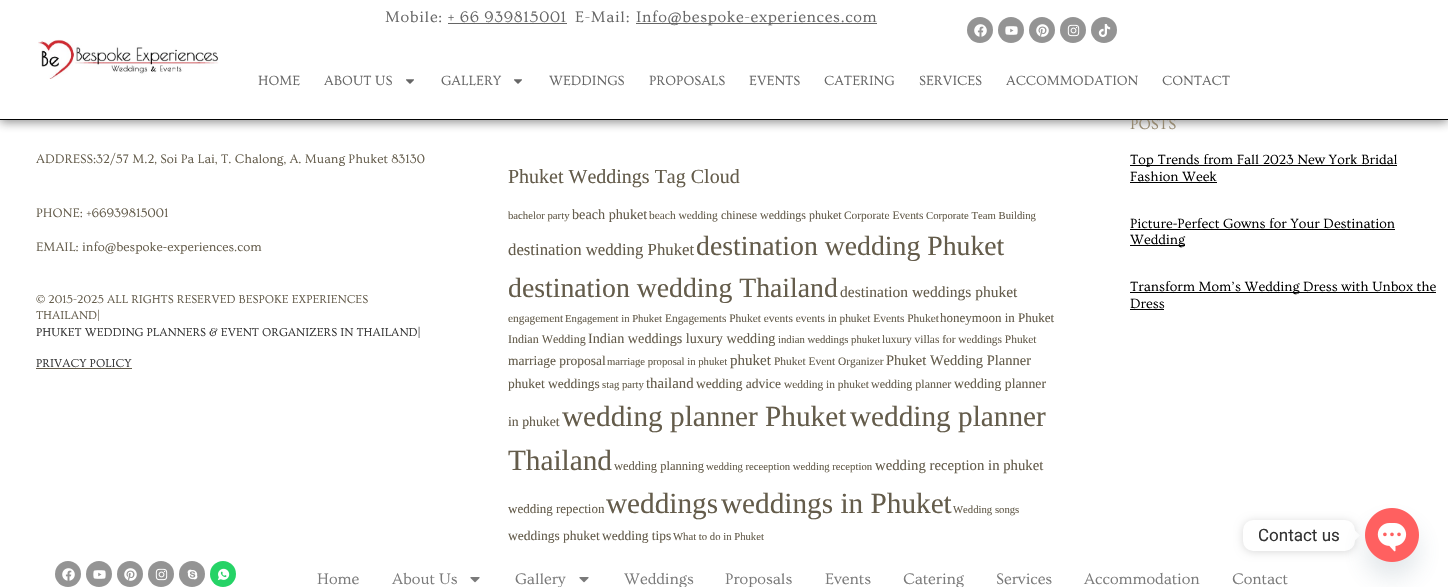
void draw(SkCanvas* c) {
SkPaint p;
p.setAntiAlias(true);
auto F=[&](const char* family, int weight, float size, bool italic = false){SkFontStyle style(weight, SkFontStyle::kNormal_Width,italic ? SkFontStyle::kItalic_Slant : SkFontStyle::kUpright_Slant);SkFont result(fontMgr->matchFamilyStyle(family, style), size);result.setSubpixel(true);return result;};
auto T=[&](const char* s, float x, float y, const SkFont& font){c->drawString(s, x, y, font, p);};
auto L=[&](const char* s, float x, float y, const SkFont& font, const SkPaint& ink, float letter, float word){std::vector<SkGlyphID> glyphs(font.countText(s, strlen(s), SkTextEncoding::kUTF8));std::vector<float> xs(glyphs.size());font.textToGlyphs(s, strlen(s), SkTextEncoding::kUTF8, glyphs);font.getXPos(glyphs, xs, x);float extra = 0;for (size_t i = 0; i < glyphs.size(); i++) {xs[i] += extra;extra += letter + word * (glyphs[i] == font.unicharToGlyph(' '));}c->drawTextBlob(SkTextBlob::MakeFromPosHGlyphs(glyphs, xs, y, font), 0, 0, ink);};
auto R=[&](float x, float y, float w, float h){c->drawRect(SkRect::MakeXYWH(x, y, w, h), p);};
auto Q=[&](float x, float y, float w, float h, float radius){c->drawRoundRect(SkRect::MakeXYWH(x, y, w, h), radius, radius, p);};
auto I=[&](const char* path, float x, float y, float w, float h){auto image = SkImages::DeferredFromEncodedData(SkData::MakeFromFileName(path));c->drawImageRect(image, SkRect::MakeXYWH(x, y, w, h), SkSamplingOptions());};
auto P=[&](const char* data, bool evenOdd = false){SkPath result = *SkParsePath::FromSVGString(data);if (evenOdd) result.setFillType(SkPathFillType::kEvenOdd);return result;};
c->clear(0xffffffff);
p.setColor(0x80141414);
p.setMaskFilter(SkMaskFilter::MakeBlur(kNormal_SkBlurStyle, 5));
c->drawRect(SkRect::MakeXYWH(0,2,1448,120),p);
p.setMaskFilter(nullptr);
auto f1 = F("Ovo",400,16);
p.setColor(0xff958971);
T("POSTS",1130,129,f1);
p.setColor(0xffffffff);
R(0,0,1448,119);
p.setColor(0xff050505);
R(0,119,1448,1);
I("1.png",38,39,181,40);
p.setColor(0xff666666);
L("Mobile: + 66 939815001",385,22,f1,p,.7,0);
R(448,23,119,1);
L("E-Mail:",575,22,f1,p,.7,0);
R(636,23,241,1);
L("Info@bespoke-experiences.com",636,22,f1,p,.7,0);
p.setColor(0xff949494);
c->drawCircle(980,30,13,p);
I("2.png",974,24,13,13);
c->drawCircle(1011,30,13,p);
I("3.png",1005,26,13,9);
c->drawCircle(1042,30,13,p);
I("4.png",1036,24,13,13);
c->drawCircle(1073,30,13,p);
I("5.png",1067,24,13,13);
c->drawCircle(1104,30,13,p);
I("6.png",1098,24,13,13);
auto f2 = F("Ovo",400,14);
p.setColor(0xff666666);
T("HOME",258,85,f2);
T("ABOUT US",324,85,f2);
I("7.png",406,79,8,5);
T("GALLERY",441,85,f2);
I("7.png",514,79,8,5);
T("WEDDINGS",549,85,f2);
T("PROPOSALS",649,85,f2);
T("EVENTS",749,85,f2);
T("CATERING",824,85,f2);
T("SERVICES",919,85,f2);
T("ACCOMMODATION",1006,85,f2);
T("CONTACT",1162,85,f2);
auto f3 = F("Ovo",400,13);
p.setColor(0xff645c4b);
T("ADDRESS:32/57 M.2, Soi Pa Lai, T. Chalong, A. Muang Phuket 83130",36,163,f3);
T("PHONE: +66939815001",36,217,f3);
T("EMAIL: info@bespoke-experiences.com",36,251,f3);
auto f4 = F("Ovo",400,12);
T("© 2015-2025 ALL RIGHTS RESERVED BESPOKE EXPERIENCES",36,303,f4);
T("THAILAND|",36,319,f4);
p.setColor(0xff333333);
T("PHUKET WEDDING PLANNERS & EVENT ORGANIZERS IN THAILAND|",36,336,f4);
T("PRIVACY POLICY",36,367,f4);
p.setColor(0xff645c4b);
R(36,368,96,1);
auto f5 = F("Liberation Serif",400,20);
T("Phuket Weddings Tag Cloud",508,183,f5);
auto f6 = F("Liberation Serif",400,10.7);
T("bachelor party",508,219,f6);
auto f7 = F("Liberation Serif",400,14.2);
T("beach phuket",572,219,f7);
auto f8 = F("Liberation Serif",400,11.4);
T("beach wedding",649,219,f8);
auto f9 = F("Liberation Serif",400,12);
T("chinese weddings phuket",721,219,f9);
T("Corporate Events",844,219,f8);
T("Corporate Team Building",926,219,f6);
auto f10 = F("Liberation Serif",400,16.75);
T("destination wedding Phuket",508,255,f10);
auto f11 = F("Liberation Serif",400,27.75);
T("destination wedding Phuket",696,255,f11);
T("destination wedding Thailand",508,297,f11);
auto f12 = F("Liberation Serif",400,15.5);
T("destination weddings phuket",840,297,f12);
T("engagement",508,322,f8);
T("Engagement in Phuket",565,322,f6);
T("Engagements Phuket events events in phuket Events Phuket",665,322,f8);
auto f13 = F("Liberation Serif",400,13);
T("honeymoon in Phuket",940,322,f13);
T("Indian Wedding",508,343,f9);
T("Indian weddings luxury wedding",588,343,f7);
T("indian weddings phuket",778,343,f6);
T("luxury villas for weddings Phuket",882,343,f8);
auto f14 = F("Liberation Serif",400,13.5);
T("marriage proposal",508,365,f14);
T("marriage proposal in phuket",607,365,f6);
auto f15 = F("Liberation Serif",400,15);
T("phuket",730,365,f15);
T("Phuket Event Organizer",774,365,f8);
auto f16 = F("Liberation Serif",400,14.5);
T("Phuket Wedding Planner",886,365,f16);
T("phuket weddings",508,388,f14);
T("stag party",602,388,f6);
auto f17 = F("Liberation Serif",400,14.75);
T("thailand",646,388,f17);
T("wedding advice",696,388,f14);
T("wedding in phuket",784,388,f8);
T("wedding planner",871,388,f9);
auto f18 = F("Liberation Serif",400,13.75);
T("wedding planner",954,388,f18);
T("in phuket",508,426,f18);
auto f19 = F("Liberation Serif",400,29.25);
T("wedding planner Phuket",562,426,f19);
T("wedding planner",850,426,f19);
T("Thailand",508,470,f19);
auto f20 = F("Liberation Serif",400,12.5);
T("wedding planning",614,470,f20);
T("wedding receeption wedding reception",706,470,f6);
T("wedding reception in phuket",875,470,f17);
T("wedding repection",508,513,f13);
T("weddings",606,513,f19);
T("weddings in Phuket",721,513,f19);
T("Wedding songs",953,513,f6);
T("weddings phuket",508,540,f14);
T("wedding tips",602,540,f14);
T("What to do in Phuket",673,540,f6);
p.setColor(0xff000000);
R(1130,165,267,1);
T("Top Trends from Fall 2023 New York Bridal",1130,164,f2);
T("Fashion Week",1130,181,f2);
R(1130,182,87,1);
T("Picture-Perfect Gowns for Your Destination",1130,228,f2);
R(1130,229,265,1);
R(1130,245,55,1);
T("Wedding",1130,244,f2);
R(1130,292,306,1);
T("Transform Mom’s Wedding Dress with Unbox the",1130,291,f2);
T("Dress",1130,308,f2);
R(1130,309,34,1);
p.setColor(0xff949494);
c->drawCircle(68,574,13,p);
I("2.png",62,568,13,13);
c->drawCircle(99,574,13,p);
I("3.png",93,570,13,9);
c->drawCircle(130,574,13,p);
I("4.png",124,568,13,13);
c->drawCircle(161,574,13,p);
I("5.png",155,568,13,13);
c->drawCircle(192,574,13,p);
I("8.png",187,569,11,11);
p.setColor(0xff25d366);
c->drawCircle(223,574,13,p);
I("9.png",217,568,13,13);
p.setColor(0xff7a7a7a);
T("Home",317,584,f1);
T("About Us",392,584,f1);
I("10.png",470,577,10,6);
T("Gallery",515,584,f1);
I("10.png",579,577,10,6);
T("Weddings",624,584,f1);
T("Proposals",725,584,f1);
T("Events",825,584,f1);
T("Catering",903,584,f1);
T("Services",996,584,f1);
T("Accommodation",1084,584,f1);
T("Contact",1232,584,f1);
p.setColor(0x26000000);
p.setMaskFilter(SkMaskFilter::MakeBlur(kNormal_SkBlurStyle, 4));
c->drawRoundRect(SkRect::MakeXYWH(1243,521,112,31),10,10,p);
p.setMaskFilter(nullptr);
p.setColor(0xffffffff);
Q(1243,520,112,31,10);
auto f21 = F("Roboto",400,17);
p.setColor(0xff333333);
T("Contact us",1258,541,f21);
p.setColor(0xffffffff);
c->drawPath(P("M1355 540.5v-10l5 5z"),p);
p.setColor(0x2949687e);
p.setMaskFilter(SkMaskFilter::MakeBlur(kNormal_SkBlurStyle, 12));
c->drawRoundRect(SkRect::MakeXYWH(1365,524,54,54),27,27,p);
p.setMaskFilter(nullptr);
I("11.png",1365,508,54,54);
}
